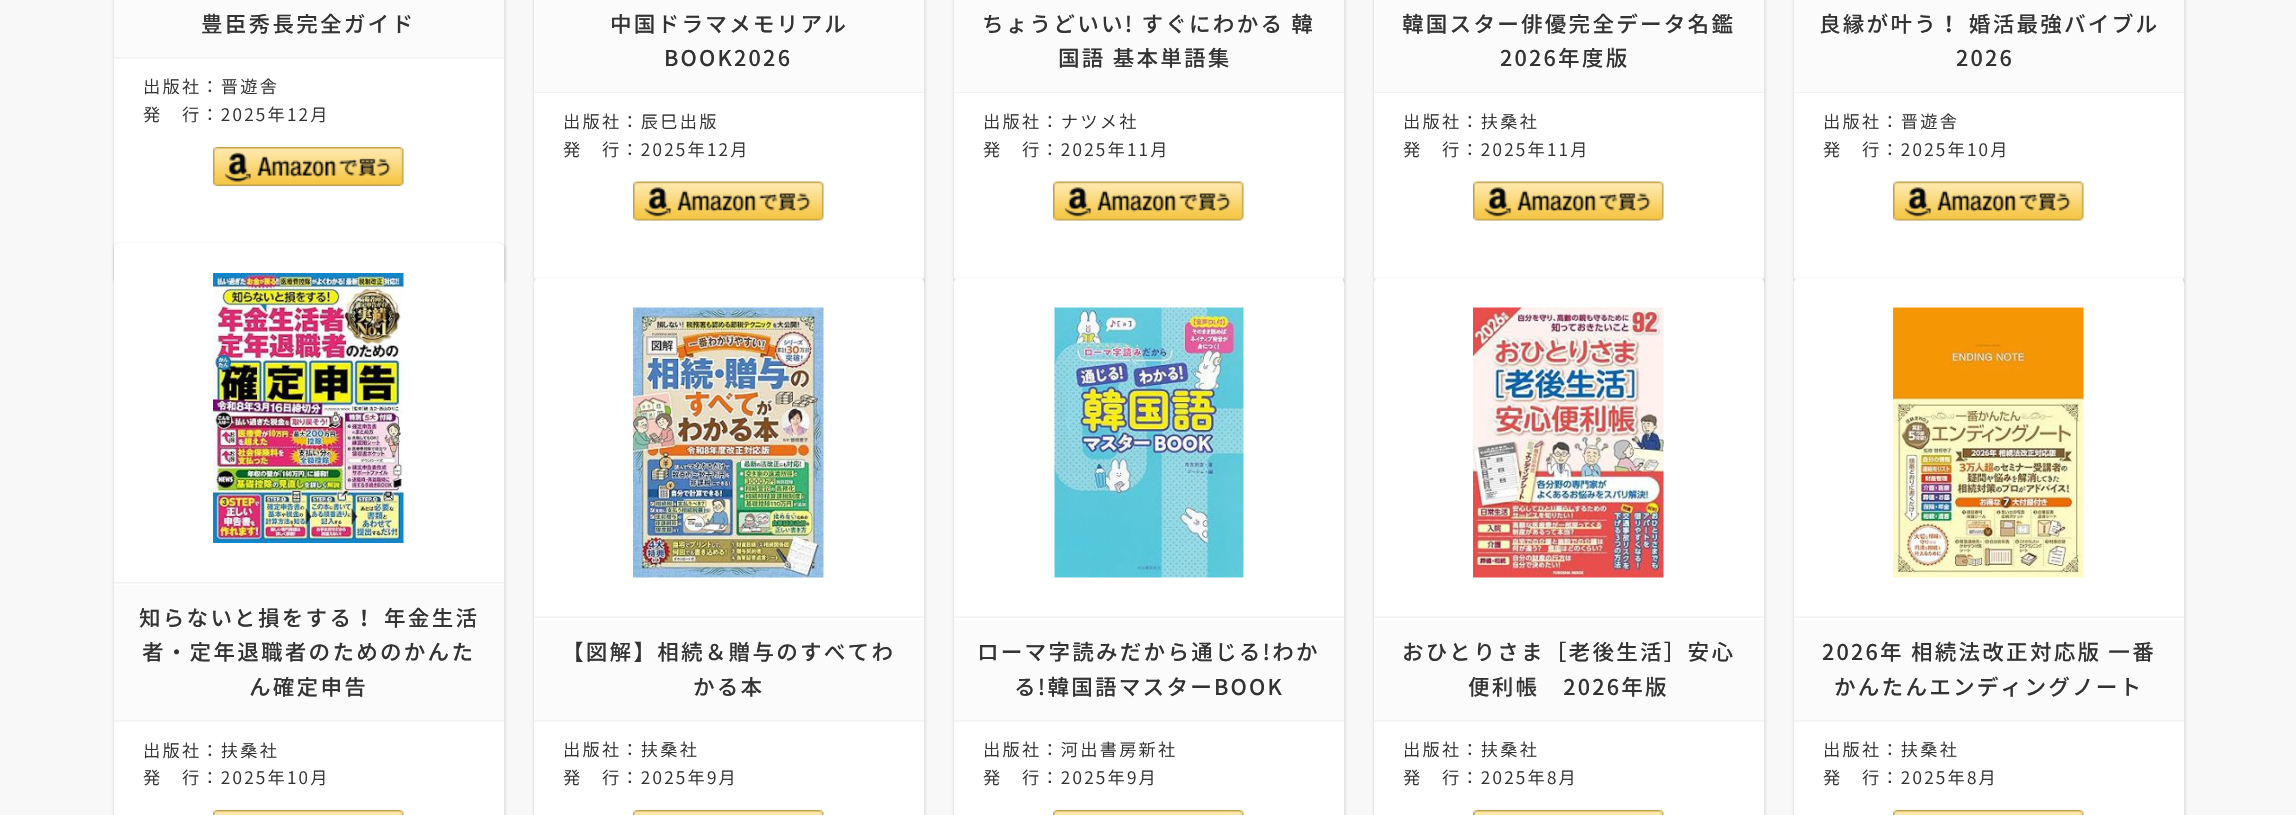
void draw(SkCanvas* c) {
SkPaint p;
p.setAntiAlias(true);
auto F=[&](const char* family, int weight, float size, bool italic = false){SkFontStyle style(weight, SkFontStyle::kNormal_Width,italic ? SkFontStyle::kItalic_Slant : SkFontStyle::kUpright_Slant);SkFont result(fontMgr->matchFamilyStyle(family, style), size);result.setSubpixel(true);return result;};
auto L=[&](const char* s, float x, float y, const SkFont& font, const SkPaint& ink, float letter, float word){std::vector<SkGlyphID> glyphs(font.countText(s, strlen(s), SkTextEncoding::kUTF8));std::vector<float> xs(glyphs.size());font.textToGlyphs(s, strlen(s), SkTextEncoding::kUTF8, glyphs);font.getXPos(glyphs, xs, x);float extra = 0;for (size_t i = 0; i < glyphs.size(); i++) {xs[i] += extra;extra += letter + word * (glyphs[i] == font.unicharToGlyph(' '));}c->drawTextBlob(SkTextBlob::MakeFromPosHGlyphs(glyphs, xs, y, font), 0, 0, ink);};
auto R=[&](float x, float y, float w, float h){c->drawRect(SkRect::MakeXYWH(x, y, w, h), p);};
auto Q=[&](float x, float y, float w, float h, float radius){c->drawRoundRect(SkRect::MakeXYWH(x, y, w, h), radius, radius, p);};
auto I=[&](const char* path, float x, float y, float w, float h){auto image = SkImages::DeferredFromEncodedData(SkData::MakeFromFileName(path));c->drawImageRect(image, SkRect::MakeXYWH(x, y, w, h), SkSamplingOptions());};
c->clear(0xfff8f8f8);
p.setColor(0x14000000);
p.setMaskFilter(SkMaskFilter::MakeBlur(kNormal_SkBlurStyle, 1));
c->drawRoundRect(SkRect::MakeXYWH(113,-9,393,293),6,6,p);
p.setMaskFilter(nullptr);
p.setColor(0xffffffff);
R(114,59,390,189);
p.setColor(0xfffbfbfb);
R(114,0,390,59);
I("1.png",114,57,390,2);
auto f1 = F("Noto Sans JP",500,21.6);
p.setColor(0xff333333);
L("豊臣秀長完全ガイド",201,32,f1,p,2.2,0);
auto f2 = F("Noto Sans JP",300,17.25);
L("出版社：晋遊舎",143,93,f2,p,2.2,0);
L("発　行：2025年12月",143,121,f2,p,2.2,0);
I("2.png",213,147,191,39);
p.setColor(0x14000000);
p.setMaskFilter(SkMaskFilter::MakeBlur(kNormal_SkBlurStyle, 1));
c->drawRoundRect(SkRect::MakeXYWH(533,-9,393,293),6,6,p);
p.setMaskFilter(nullptr);
p.setColor(0xffffffff);
Q(534,-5,390,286,5);
p.setColor(0xfffbfbfb);
R(534,0,390,92);
p.setColor(0xfff2f2f2);
R(534,92,390,1);
p.setColor(0xff333333);
L("中国ドラマメモリアル",610,32,f1,p,2.2,0);
L("BOOK2026",664,66,f1,p,2.2,0);
L("出版社：辰巳出版",563,128,f2,p,2.2,0);
L("発　行：2025年12月",563,156,f2,p,2.2,0);
I("3.png",633,181,191,40);
p.setColor(0x14000000);
p.setMaskFilter(SkMaskFilter::MakeBlur(kNormal_SkBlurStyle, 1));
c->drawRoundRect(SkRect::MakeXYWH(953,-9,393,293),6,6,p);
p.setMaskFilter(nullptr);
p.setColor(0xffffffff);
Q(954,-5,390,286,5);
p.setColor(0xfffbfbfb);
R(954,0,390,92);
p.setColor(0xfff2f2f2);
R(954,92,390,1);
p.setColor(0xff333333);
L("ちょうどいい! すぐにわかる 韓",982,32,f1,p,2.2,0);
L("国語 基本単語集",1058,66,f1,p,2.2,0);
L("出版社：ナツメ社",983,128,f2,p,2.2,0);
L("発　行：2025年11月",983,156,f2,p,2.2,0);
I("4.png",1053,181,191,40);
p.setColor(0x14000000);
p.setMaskFilter(SkMaskFilter::MakeBlur(kNormal_SkBlurStyle, 1));
c->drawRoundRect(SkRect::MakeXYWH(1373,-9,393,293),6,6,p);
p.setMaskFilter(nullptr);
p.setColor(0xffffffff);
Q(1374,-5,390,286,5);
p.setColor(0xfffbfbfb);
R(1374,0,390,92);
p.setColor(0xfff2f2f2);
R(1374,92,390,1);
p.setColor(0xff333333);
L("韓国スター俳優完全データ名鑑",1402,32,f1,p,2.2,0);
L("2026年度版",1500,66,f1,p,2.2,0);
L("出版社：扶桑社",1403,128,f2,p,2.2,0);
L("発　行：2025年11月",1403,156,f2,p,2.2,0);
I("5.png",1473,181,191,40);
p.setColor(0x14000000);
p.setMaskFilter(SkMaskFilter::MakeBlur(kNormal_SkBlurStyle, 1));
c->drawRoundRect(SkRect::MakeXYWH(1793,-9,393,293),6,6,p);
p.setMaskFilter(nullptr);
p.setColor(0xffffffff);
Q(1794,-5,390,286,5);
p.setColor(0xfffbfbfb);
R(1794,0,390,92);
p.setColor(0xfff2f2f2);
R(1794,92,390,1);
p.setColor(0xff333333);
L("良縁が叶う！ 婚活最強バイブル",1819,32,f1,p,2.2,0);
L("2026",1956,66,f1,p,2.2,0);
L("出版社：晋遊舎",1823,128,f2,p,2.2,0);
L("発　行：2025年10月",1823,156,f2,p,2.2,0);
I("6.png",1893,181,191,40);
p.setColor(0x14000000);
p.setMaskFilter(SkMaskFilter::MakeBlur(kNormal_SkBlurStyle, 1));
c->drawRoundRect(SkRect::MakeXYWH(113,243,393,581),6,6,p);
p.setMaskFilter(nullptr);
p.setColor(0xffffffff);
Q(114,243,390,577,5);
I("7.png",213,273,191,270);
I("8.png",114,582,390,2);
p.setColor(0xfffbfbfb);
R(114,585,390,137);
I("1.png",114,720,390,2);
p.setColor(0xff333333);
L("知らないと損をする！ 年金生活",139,626,f1,p,2.2,0);
L("者・定年退職者のためのかんた",142,660,f1,p,2.2,0);
L("ん確定申告",249,695,f1,p,2.2,0);
L("出版社：扶桑社",143,757,f2,p,2.2,0);
L("発　行：2025年10月",143,784,f2,p,2.2,0);
I("9.png",213,810,191,5);
p.setColor(0x14000000);
p.setMaskFilter(SkMaskFilter::MakeBlur(kNormal_SkBlurStyle, 1));
c->drawRoundRect(SkRect::MakeXYWH(533,278,393,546),6,6,p);
p.setMaskFilter(nullptr);
p.setColor(0xffffffff);
Q(534,278,390,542,5);
I("10.png",633,307,191,271);
I("11.png",534,616,390,2);
p.setColor(0xfffbfbfb);
R(534,620,390,102);
I("1.png",534,720,390,2);
p.setColor(0xff333333);
L("【図解】相続＆贈与のすべてわ",562,660,f1,p,2.2,0);
L("かる本",693,695,f1,p,2.2,0);
L("出版社：扶桑社",563,756,f2,p,2.2,0);
L("発　行：2025年9月",563,784,f2,p,2.2,0);
I("9.png",633,810,191,5);
p.setColor(0x14000000);
p.setMaskFilter(SkMaskFilter::MakeBlur(kNormal_SkBlurStyle, 1));
c->drawRoundRect(SkRect::MakeXYWH(953,278,393,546),6,6,p);
p.setMaskFilter(nullptr);
p.setColor(0xffffffff);
Q(954,278,390,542,5);
I("12.png",1054,307,190,271);
I("11.png",954,616,390,2);
p.setColor(0xfffbfbfb);
R(954,620,390,102);
I("1.png",954,720,390,2);
p.setColor(0xff333333);
L("ローマ字読みだから通じる!わか",977,660,f1,p,2.2,0);
L("る!韓国語マスターBOOK",1014,695,f1,p,2.2,0);
L("出版社：河出書房新社",983,756,f2,p,2.2,0);
L("発　行：2025年9月",983,784,f2,p,2.2,0);
I("13.png",1053,810,191,5);
p.setColor(0x14000000);
p.setMaskFilter(SkMaskFilter::MakeBlur(kNormal_SkBlurStyle, 1));
c->drawRoundRect(SkRect::MakeXYWH(1373,278,393,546),6,6,p);
p.setMaskFilter(nullptr);
p.setColor(0xffffffff);
Q(1374,278,390,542,5);
I("14.png",1473,307,191,271);
I("11.png",1374,616,390,2);
p.setColor(0xfffbfbfb);
R(1374,620,390,102);
I("1.png",1374,720,390,2);
p.setColor(0xff333333);
L("おひとりさま［老後生活］安心",1402,660,f1,p,2.2,0);
L("便利帳　2026年版",1468,695,f1,p,2.2,0);
L("出版社：扶桑社",1403,756,f2,p,2.2,0);
L("発　行：2025年8月",1403,784,f2,p,2.2,0);
I("13.png",1473,810,191,5);
p.setColor(0x14000000);
p.setMaskFilter(SkMaskFilter::MakeBlur(kNormal_SkBlurStyle, 1));
c->drawRoundRect(SkRect::MakeXYWH(1793,278,393,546),6,6,p);
p.setMaskFilter(nullptr);
p.setColor(0xffffffff);
Q(1794,278,390,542,5);
I("15.png",1893,307,191,271);
I("11.png",1794,616,390,2);
p.setColor(0xfffbfbfb);
R(1794,620,390,102);
I("1.png",1794,720,390,2);
p.setColor(0xff333333);
L("2026年 相続法改正対応版 一番",1822,660,f1,p,2.2,0);
L("かんたんエンディングノート",1834,695,f1,p,2.2,0);
L("出版社：扶桑社",1823,756,f2,p,2.2,0);
L("発　行：2025年8月",1823,784,f2,p,2.2,0);
I("13.png",1893,810,191,5);
}
